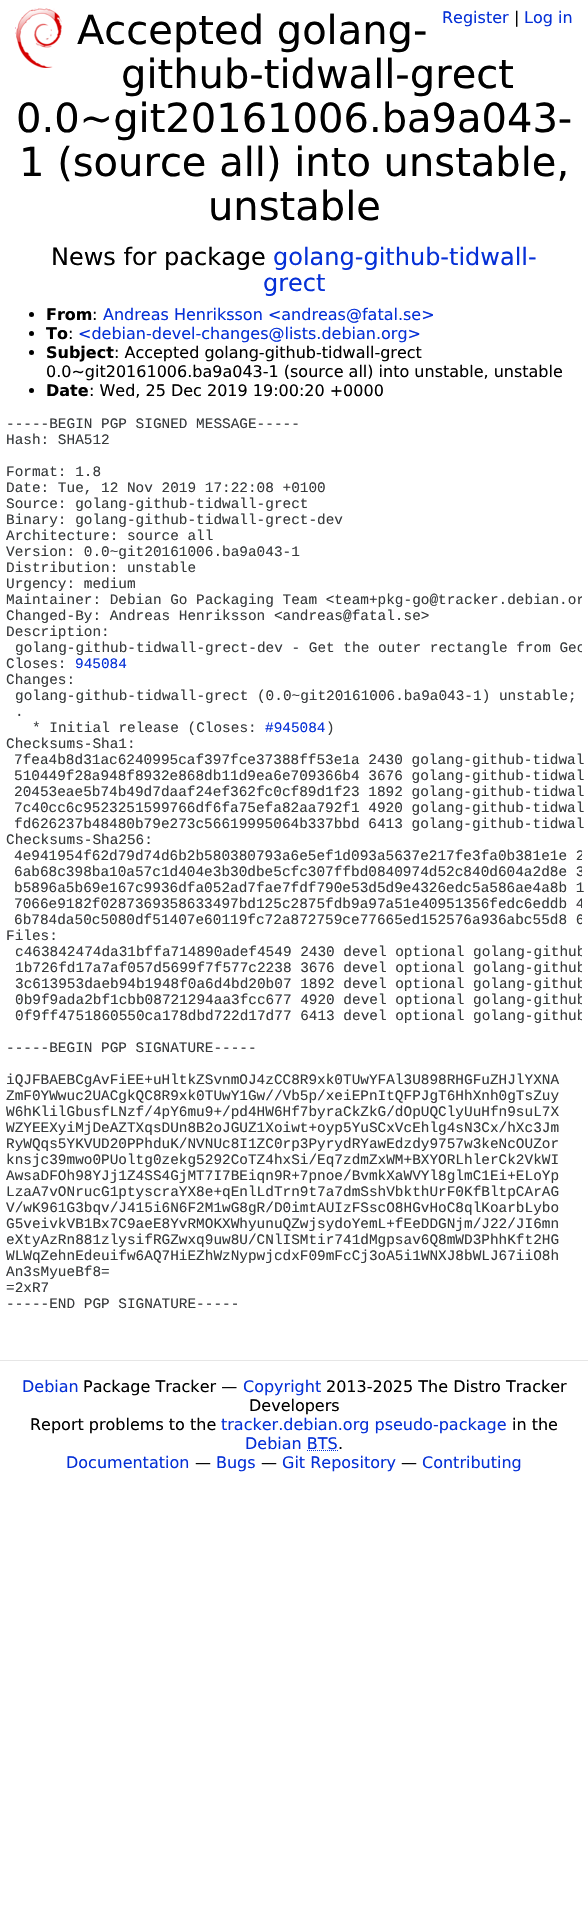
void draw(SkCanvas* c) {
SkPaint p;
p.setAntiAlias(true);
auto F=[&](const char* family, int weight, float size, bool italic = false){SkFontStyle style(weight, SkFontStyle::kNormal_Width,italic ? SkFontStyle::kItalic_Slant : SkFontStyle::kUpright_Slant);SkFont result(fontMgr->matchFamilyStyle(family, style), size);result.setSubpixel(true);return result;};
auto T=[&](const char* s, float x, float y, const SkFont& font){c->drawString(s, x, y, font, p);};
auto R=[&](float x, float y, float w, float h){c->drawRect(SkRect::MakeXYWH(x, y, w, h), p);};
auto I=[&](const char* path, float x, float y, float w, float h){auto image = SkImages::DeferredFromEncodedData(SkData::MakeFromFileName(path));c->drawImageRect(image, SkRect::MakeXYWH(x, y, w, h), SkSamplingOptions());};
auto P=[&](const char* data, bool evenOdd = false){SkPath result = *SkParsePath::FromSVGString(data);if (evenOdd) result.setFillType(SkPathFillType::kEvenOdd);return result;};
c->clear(0xffffffff);
I("1.png",15,8,47,60);
auto f1 = F("DejaVu Sans",400,16);
p.setColor(0xff0530d7);
T("Register",442,23,f1);
p.setColor(0xff000000);
T("|",514,23,f1);
p.setColor(0xff0530d7);
T("Log in",524,23,f1);
auto f2 = F("DejaVu Sans",400,40);
p.setColor(0xff000000);
T("Accepted golang-",77,44,f2);
T("github-tidwall-grect",121,88,f2);
T("0.0~git20161006.ba9a043-",16,132,f2);
T("1 (source all) into unstable,",19,176,f2);
T("unstable",208,220,f2);
auto f3 = F("DejaVu Sans",400,24);
T("News for package",51,265,f3);
p.setColor(0xff0530d7);
T("golang-github-tidwall-",273,265,f3);
T("grect",263,291,f3);
p.setColor(0xff000000);
c->drawCircle(31.5,314.5,2.5,p);
auto f4 = F("DejaVu Sans",700,16);
T("From",46,320,f4);
T(":",92,320,f1);
p.setColor(0xff0530d7);
T("Andreas Henriksson <andreas@fatal.se>",103,320,f1);
p.setColor(0xff000000);
c->drawCircle(31.5,333.5,2.5,p);
T("To",46,339,f4);
T(":",68,339,f1);
p.setColor(0xff0530d7);
T("<debian-devel-changes@lists.debian.org>",78,339,f1);
p.setColor(0xff000000);
c->drawCircle(31.5,352.5,2.5,p);
T("Subject",46,358,f4);
T(": Accepted golang-github-tidwall-grect",114,358,f1);
T("0.0~git20161006.ba9a043-1 (source all) into unstable, unstable",46,377,f1);
c->drawCircle(31.5,390.5,2.5,p);
T("Date",46,396,f4);
T(": Wed, 25 Dec 2019 19:00:20 +0000",89,396,f1);
auto f5 = F("Liberation Mono",400,14.4);
p.setColor(0xff373a3c);
T("-----BEGIN PGP SIGNED MESSAGE-----",6,428,f5);
T("Hash: SHA512",6,444,f5);
T("Format: 1.8",6,476,f5);
T("Date: Tue, 12 Nov 2019 17:22:08 +0100",6,492,f5);
T("Source: golang-github-tidwall-grect",6,508,f5);
T("Binary: golang-github-tidwall-grect-dev",6,524,f5);
T("Architecture: source all",6,540,f5);
T("Version: 0.0~git20161006.ba9a043-1",6,556,f5);
T("Distribution: unstable",6,572,f5);
T("Urgency: medium",6,588,f5);
c->save();
c->clipRect(SkRect::MakeXYWH(6,416,576,912));
T("Maintainer: Debian Go Packaging Team <team+pkg-go@tracker.debian.or",6,604,f5);
c->restore();
T("Changed-By: Andreas Henriksson <andreas@fatal.se>",6,620,f5);
T("Description:",6,636,f5);
c->save();
c->clipRect(SkRect::MakeXYWH(6,416,576,912));
T("golang-github-tidwall-grect-dev - Get the outer rectangle from Geo",15,652,f5);
c->restore();
T("Closes:",6,668,f5);
p.setColor(0xff0530d7);
T("945084",75,668,f5);
p.setColor(0xff373a3c);
T("Changes:",6,684,f5);
T("golang-github-tidwall-grect (0.0~git20161006.ba9a043-1) unstable;",15,700,f5);
T(".",15,716,f5);
T("* Initial release (Closes:",32,732,f5);
p.setColor(0xff0530d7);
T("#945084",265,732,f5);
p.setColor(0xff373a3c);
T(")",326,732,f5);
T("Checksums-Sha1:",6,748,f5);
T("7fea4b8d31ac6240995caf397fce37388ff53e1a 2430 golang-github-tidwal",14,764,f5);
T("510449f28a948f8932e868db11d9ea6e709366b4 3676 golang-github-tidwal",14,780,f5);
T("20453eae5b74b49d7daaf24ef362fc0cf89d1f23 1892 golang-github-tidwal",14,796,f5);
T("7c40cc6c9523251599766df6fa75efa82aa792f1 4920 golang-github-tidwal",14,812,f5);
T("fd626237b48480b79e273c56619995064b337bbd 6413 golang-github-tidwal",14,828,f5);
T("Checksums-Sha256:",6,844,f5);
c->save();
c->clipRect(SkRect::MakeXYWH(6,416,576,912));
T("4e941954f62d79d74d6b2b580380793a6e5ef1d093a5637e217fe3fa0b381e1e 2",14,860,f5);
T("6ab68c398ba10a57c1d404e3b30dbe5cfc307ffbd0840974d52c840d604a2d8e 3",14,876,f5);
c->restore();
T("b5896a5b69e167c9936dfa052ad7fae7fdf790e53d5d9e4326edc5a586ae4a8b 1",14,892,f5);
c->save();
c->clipRect(SkRect::MakeXYWH(6,416,576,912));
T("7066e9182f0287369358633497bd125c2875fdb9a97a51e40951356fedc6eddb 4",14,908,f5);
T("6b784da50c5080df51407e60119fc72a872759ce77665ed152576a936abc55d8 6",14,924,f5);
c->restore();
T("Files:",6,940,f5);
c->save();
c->clipRect(SkRect::MakeXYWH(6,416,576,912));
T("c463842474da31bffa714890adef4549 2430 devel optional golang-github",15,956,f5);
T("1b726fd17a7af057d5699f7f577c2238 3676 devel optional golang-github",15,972,f5);
T("3c613953daeb94b1948f0a6d4bd20b07 1892 devel optional golang-github",15,988,f5);
T("0b9f9ada2bf1cbb08721294aa3fcc677 4920 devel optional golang-github",15,1004,f5);
T("0f9ff4751860550ca178dbd722d17d77 6413 devel optional golang-github",15,1020,f5);
c->restore();
T("-----BEGIN PGP SIGNATURE-----",6,1052,f5);
T("iQJFBAEBCgAvFiEE+uHltkZSvnmOJ4zCC8R9xk0TUwYFAl3U898RHGFuZHJlYXNA",6,1084,f5);
T("ZmF0YWwuc2UACgkQC8R9xk0TUwY1Gw//Vb5p/xeiEPnItQFPJgT6HhXnh0gTsZuy",6,1100,f5);
T("W6hKlilGbusfLNzf/4pY6mu9+/pd4HW6Hf7byraCkZkG/dOpUQClyUuHfn9suL7X",6,1116,f5);
T("WZYEEXyiMjDeAZTXqsDUn8B2oJGUZ1Xoiwt+oyp5YuSCxVcEhlg4sN3Cx/hXc3Jm",6,1132,f5);
T("RyWQqs5YKVUD20PPhduK/NVNUc8I1ZC0rp3PyrydRYawEdzdy9757w3keNcOUZor",6,1148,f5);
T("knsjc39mwo0PUoltg0zekg5292CoTZ4hxSi/Eq7zdmZxWM+BXYORLhlerCk2VkWI",6,1164,f5);
T("AwsaDFOh98YJj1Z4SS4GjMT7I7BEiqn9R+7pnoe/BvmkXaWVYl8glmC1Ei+ELoYp",6,1180,f5);
T("LzaA7vONrucG1ptyscraYX8e+qEnlLdTrn9t7a7dmSshVbkthUrF0KfBltpCArAG",6,1196,f5);
T("V/wK961G3bqv/J415i6N6F2M1wG8gR/D0imtAUIzFSscO8HGvHoC8qlKoarbLybo",6,1212,f5);
T("G5veivkVB1Bx7C9aeE8YvRMOKXWhyunuQZwjsydoYemL+fEeDDGNjm/J22/JI6mn",6,1228,f5);
T("eXtyAzRn881zlysifRGZwxq9uw8U/CNlISMtir741dMgpsav6Q8mWD3PhhKft2HG",6,1244,f5);
T("WLWqZehnEdeuifw6AQ7HiEZhWzNypwjcdxF09mFcCj3oA5i1WNXJ8bWLJ67iiO8h",6,1260,f5);
T("An3sMyueBf8=",6,1276,f5);
T("=2xR7",6,1292,f5);
T("-----END PGP SIGNATURE-----",6,1308,f5);
p.setColor(0xffe6e6e6);
R(0,1360,588,1);
p.setColor(0xff0530d7);
T("Debian",22,1392,f1);
p.setColor(0xff000000);
T("Package Tracker —",83,1392,f1);
p.setColor(0xff0530d7);
T("Copyright",243,1392,f1);
p.setColor(0xff000000);
T("2013-2025 The Distro Tracker",326,1392,f1);
T("Developers",249,1411,f1);
T("Report problems to the",30,1430,f1);
p.setColor(0xff0530d7);
T("tracker.debian.org pseudo-package",221,1430,f1);
p.setColor(0xff000000);
T("in the",512,1430,f1);
p.setColor(0xff0530d7);
T("Debian BTS",245,1449,f1);
p.setStroke(true);
p.setStrokeWidth(1);
p.setPathEffect(SkDashPathEffect::Make({{1,1}}, 0));
c->drawPath(P("M307 1450.5h31"),p);
p.setPathEffect(nullptr);
p.setStroke(false);
p.setColor(0xff000000);
T(".",338,1449,f1);
p.setColor(0xff0530d7);
T("Documentation",66,1468,f1);
p.setColor(0xff000000);
T("—",195,1468,f1);
p.setColor(0xff0530d7);
T("Bugs",216,1468,f1);
p.setColor(0xff000000);
T("—",261,1468,f1);
p.setColor(0xff0530d7);
T("Git Repository",282,1468,f1);
p.setColor(0xff000000);
T("—",401,1468,f1);
p.setColor(0xff0530d7);
T("Contributing",422,1468,f1);
}
